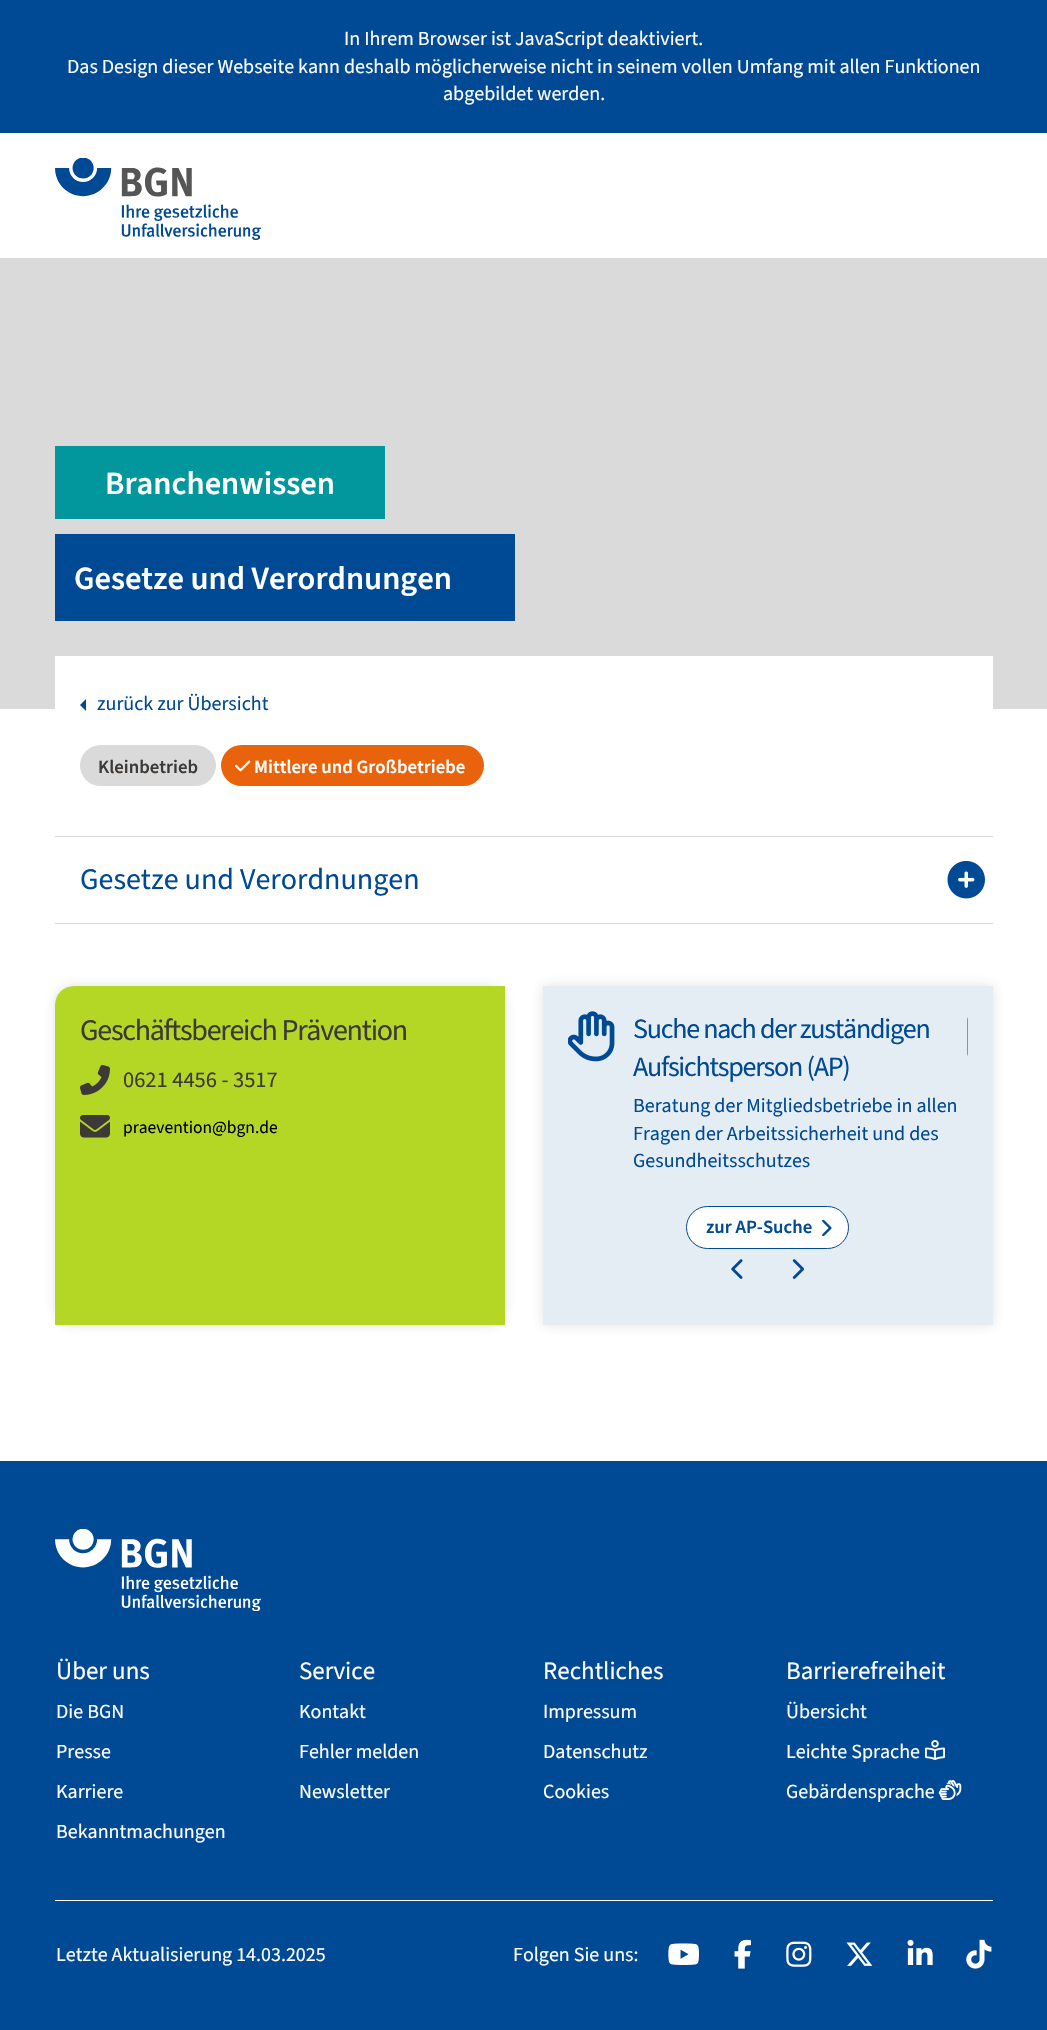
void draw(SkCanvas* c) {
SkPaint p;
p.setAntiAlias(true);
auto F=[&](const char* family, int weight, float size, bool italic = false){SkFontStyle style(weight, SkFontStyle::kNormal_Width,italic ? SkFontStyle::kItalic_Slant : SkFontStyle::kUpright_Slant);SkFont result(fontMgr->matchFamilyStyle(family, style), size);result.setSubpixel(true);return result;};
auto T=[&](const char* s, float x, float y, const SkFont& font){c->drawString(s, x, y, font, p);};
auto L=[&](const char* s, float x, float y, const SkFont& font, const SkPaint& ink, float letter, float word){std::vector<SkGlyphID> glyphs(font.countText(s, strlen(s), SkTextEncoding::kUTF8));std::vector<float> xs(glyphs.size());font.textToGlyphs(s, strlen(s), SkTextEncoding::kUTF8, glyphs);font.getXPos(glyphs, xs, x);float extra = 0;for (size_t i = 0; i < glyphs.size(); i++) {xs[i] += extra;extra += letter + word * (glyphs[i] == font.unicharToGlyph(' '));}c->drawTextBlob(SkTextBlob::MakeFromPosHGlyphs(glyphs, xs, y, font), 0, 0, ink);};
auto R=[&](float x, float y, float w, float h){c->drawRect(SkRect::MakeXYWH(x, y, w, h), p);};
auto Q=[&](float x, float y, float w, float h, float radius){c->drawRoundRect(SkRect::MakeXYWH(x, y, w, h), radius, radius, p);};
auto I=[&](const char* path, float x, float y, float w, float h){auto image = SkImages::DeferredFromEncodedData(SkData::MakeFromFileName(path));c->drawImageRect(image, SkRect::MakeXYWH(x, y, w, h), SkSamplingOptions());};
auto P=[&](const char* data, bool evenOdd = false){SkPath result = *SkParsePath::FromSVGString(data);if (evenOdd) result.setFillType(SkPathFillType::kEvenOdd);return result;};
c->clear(0xffffffff);
p.setColor(0xff004994);
R(0,0,1047,133);
auto f1 = F("Source Sans 3",400,20);
p.setColor(0xffffffff);
T("In Ihrem Browser ist JavaScript deaktiviert.",344,45,f1);
T("Das Design dieser Webseite kann deshalb möglicherweise nicht in seinem vollen Umfang mit allen Funktionen",67,73,f1);
T("abgebildet werden.",443,100,f1);
I("1.png",55,158,206,82);
p.setColor(0xffdadada);
R(0,258,1047,451);
p.setColor(0xff004994);
R(55,534,460,87);
p.setColor(0xff02979d);
R(55,446,330,73);
auto f2 = F("Source Sans 3",600,32.5);
p.setColor(0xffffffff);
T("Branchenwissen",105,494,f2);
T("Gesetze und Verordnungen",74,589,f2);
R(55,656,938,53);
p.setColor(0xff004994);
c->drawPath(P("M86 699v12l-6-6z"),p);
T("zurück zur Übersicht",97,710,f1);
p.setColor(0xffdadada);
Q(80,745,136,41,20.5);
auto f3 = F("Source Sans 3",600,18.75);
p.setColor(0xff3c3937);
T("Kleinbetrieb",98,773,f3);
p.setColor(0xffe8630b);
Q(221,745,263,41,20.5);
I("2.png",235,760,16,12);
p.setColor(0xffffffff);
T("Mittlere und Großbetriebe",254,773,f3);
p.setColor(0xffdadada);
R(55,923,938,1);
R(55,836,938,1);
auto f4 = F("Source Sans 3",400,30);
p.setColor(0xff004994);
T("Gesetze und Verordnungen",80,889,f4);
I("3.png",947,860,38,39);
p.setColor(0x26363636);
p.setMaskFilter(SkMaskFilter::MakeBlur(kNormal_SkBlurStyle, 6));
c->drawRoundRect(SkRect::MakeXYWH(55,986,450,339),19,19,p);
p.setMaskFilter(nullptr);
p.setColor(0xffb4d725);
c->drawPath(P("M74 986h431v339h-450v-320c0-10.5 8.5-19 19-19z"),p);
p.setColor(0xff3c3937);
L("Geschäftsbereich Prävention",80,1040,f4,p,-1.25,0);
I("4.png",80,1065,30,30);
auto f5 = F("Source Sans 3",400,22.5);
T("0621 4456 - 3517",123,1087,f5);
I("5.png",80,1115,30,23);
auto f6 = F("Source Sans 3",400,17.5);
p.setColor(0xff000000);
T("praevention@bgn.de",123,1133,f6);
p.setColor(0x26363636);
p.setMaskFilter(SkMaskFilter::MakeBlur(kNormal_SkBlurStyle, 6));
c->drawRect(SkRect::MakeXYWH(543,986,450,339),p);
p.setMaskFilter(nullptr);
p.setColor(0xffe5edf4);
R(543,986,450,339);
I("6.png",568,1011,47,51);
auto f7 = F("Source Sans 3",400,28);
p.setColor(0xff004994);
L("Suche nach der zuständigen",633,1038,f7,p,-1.25,0);
L("Aufsichtsperson (AP)",633,1076,f7,p,-1.25,0);
T("Beratung der Mitgliedsbetriebe in allen",633,1112,f1);
T("Fragen der Arbeitssicherheit und des",633,1140,f1);
T("Gesundheitsschutzes",633,1167,f1);
p.setColor(0xffffffff);
c->drawRoundRect(SkRect::MakeXYWH(686.5,1206.5,162,42),21,21,p);
p.setStroke(true);
p.setStrokeWidth(1);
p.setColor(0xff004994);
c->drawRoundRect(SkRect::MakeXYWH(686.5,1206.5,162,42),21,21,p);
p.setStroke(false);
T("zur AP-Suche",706,1233,f3);
I("7.png",822,1219,10,18);
I("8.png",967,1017,1,39);
I("9.png",731,1259,12,20);
I("10.png",792,1259,12,20);
R(0,1461,1047,569);
I("11.png",55,1529,206,82);
auto f8 = F("Source Sans 3",400,25);
p.setColor(0xffffffff);
T("Über uns",56,1679,f8);
T("Die BGN",56,1718,f1);
T("Presse",56,1758,f1);
T("Karriere",56,1798,f1);
T("Bekanntmachungen",56,1838,f1);
T("Service",299,1679,f8);
T("Kontakt",299,1718,f1);
T("Fehler melden",299,1758,f1);
T("Newsletter",299,1798,f1);
T("Rechtliches",543,1679,f8);
T("Impressum",543,1718,f1);
T("Datenschutz",543,1758,f1);
T("Cookies",543,1798,f1);
T("Barrierefreiheit",786,1679,f8);
T("Übersicht",786,1718,f1);
T("Leichte Sprache",786,1758,f1);
I("12.png",925,1740,20,20);
T("Gebärdensprache",786,1798,f1);
I("13.png",938,1780,24,20);
R(55,1900,938,1);
T("Letzte Aktualisierung 14.03.2025",56,1961,f1);
T("Folgen Sie uns:",513,1961,f1);
I("14.png",668,1943,31,22);
I("15.png",734,1939,17,30);
I("16.png",786,1941,26,26);
I("17.png",846,1942,27,24);
I("18.png",907,1939,26,26);
I("19.png",966,1939,26,30);
}
